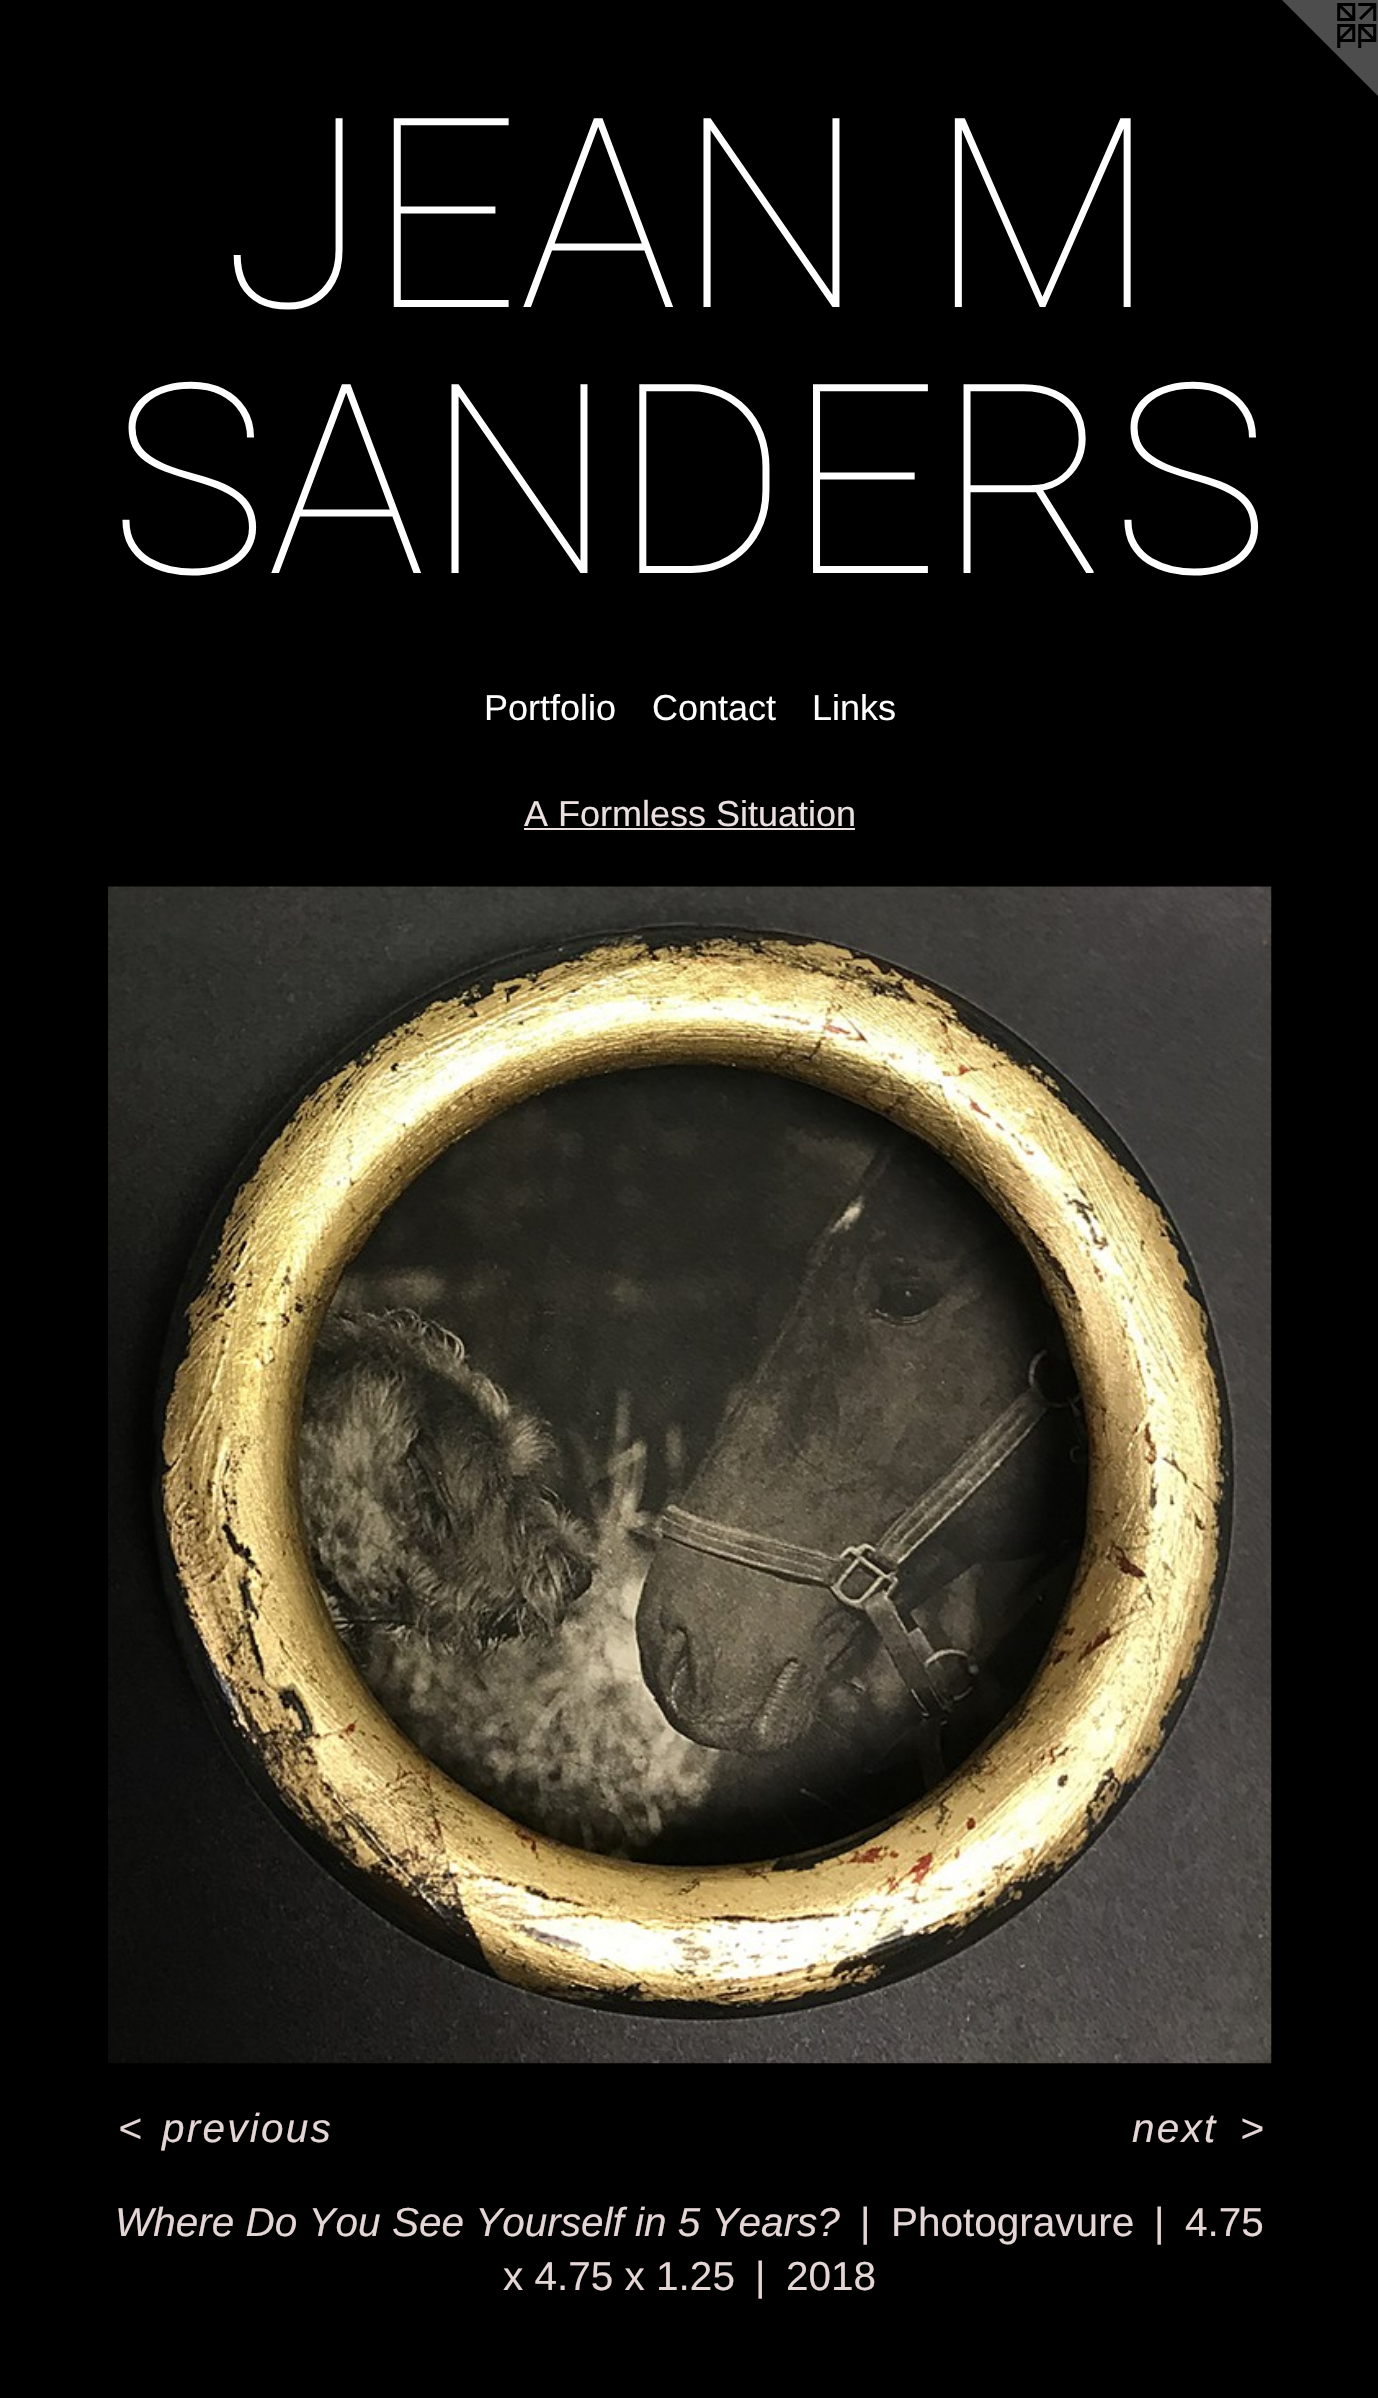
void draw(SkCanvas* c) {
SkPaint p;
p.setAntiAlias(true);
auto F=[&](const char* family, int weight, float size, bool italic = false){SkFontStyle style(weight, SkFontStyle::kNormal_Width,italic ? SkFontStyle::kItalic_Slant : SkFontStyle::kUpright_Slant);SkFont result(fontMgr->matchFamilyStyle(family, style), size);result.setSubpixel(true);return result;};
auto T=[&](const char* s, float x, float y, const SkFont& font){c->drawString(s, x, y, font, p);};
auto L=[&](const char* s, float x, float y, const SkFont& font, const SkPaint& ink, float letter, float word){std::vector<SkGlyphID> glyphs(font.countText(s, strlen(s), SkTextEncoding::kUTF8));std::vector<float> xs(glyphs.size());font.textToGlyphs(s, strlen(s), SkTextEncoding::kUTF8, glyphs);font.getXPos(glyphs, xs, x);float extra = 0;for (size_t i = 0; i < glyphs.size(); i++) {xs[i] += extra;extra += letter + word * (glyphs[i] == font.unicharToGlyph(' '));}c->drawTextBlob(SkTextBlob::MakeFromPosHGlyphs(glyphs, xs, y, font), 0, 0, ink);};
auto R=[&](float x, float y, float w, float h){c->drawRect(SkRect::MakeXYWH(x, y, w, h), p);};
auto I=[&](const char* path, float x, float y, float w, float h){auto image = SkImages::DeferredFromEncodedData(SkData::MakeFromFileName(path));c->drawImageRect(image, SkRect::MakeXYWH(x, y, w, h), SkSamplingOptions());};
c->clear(0xff000000);
I("1.png",1282,0,96,96);
auto f1 = F("Roboto",100,265.5);
p.setColor(0xffffffff);
T("JEAN M",222,307,f1);
T("SANDERS",110,573,f1);
auto f2 = F("Liberation Sans",400,36);
T("Portfolio",484,720,f2);
T("Contact",652,720,f2);
T("Links",812,720,f2);
p.setColor(0xffebe0e0);
T("A Formless Situation",524,826,f2);
R(524,828,331,2);
I("2.png",108,886,1164,1178);
auto f3 = F("Liberation Sans",400,40.5,true);
p.setColor(0xffe5d6d6);
L("<",118,2142,f3,p,2.25,0);
L("previous",162,2142,f3,p,2.25,0);
L("next",1132,2142,f3,p,2.25,0);
L(">",1240,2142,f3,p,2.25,0);
T("Where Do You See Yourself in 5 Years?",115,2236,f3);
auto f4 = F("Liberation Sans",400,40.5);
T("|",860,2236,f4);
T("Photogravure",891,2236,f4);
T("|",1154,2236,f4);
T("4.75",1185,2236,f4);
T("x 4.75 x 1.25",503,2290,f4);
T("|",755,2290,f4);
T("2018",786,2290,f4);
}
